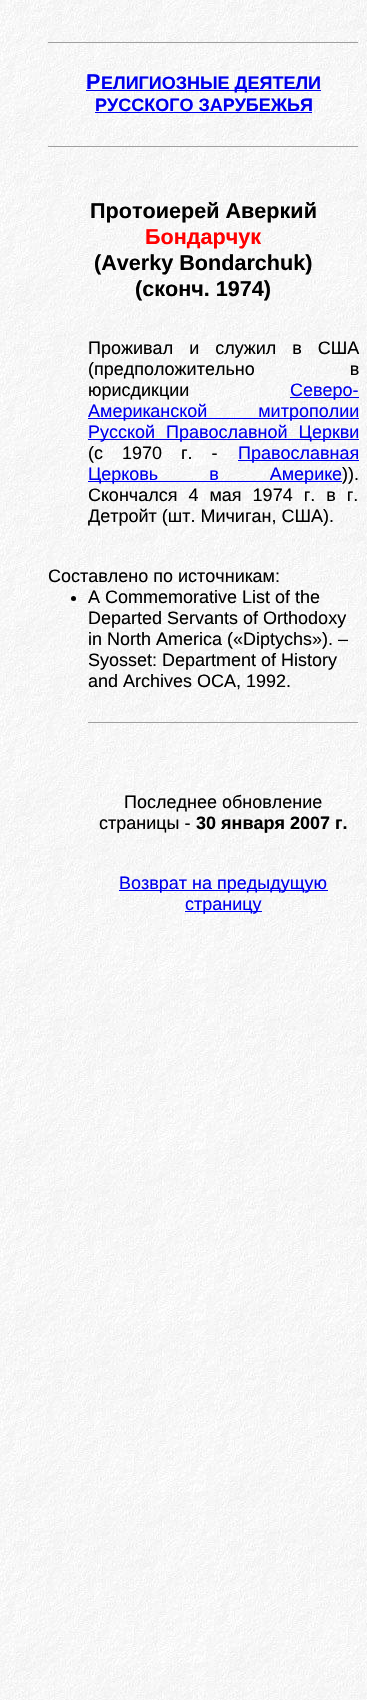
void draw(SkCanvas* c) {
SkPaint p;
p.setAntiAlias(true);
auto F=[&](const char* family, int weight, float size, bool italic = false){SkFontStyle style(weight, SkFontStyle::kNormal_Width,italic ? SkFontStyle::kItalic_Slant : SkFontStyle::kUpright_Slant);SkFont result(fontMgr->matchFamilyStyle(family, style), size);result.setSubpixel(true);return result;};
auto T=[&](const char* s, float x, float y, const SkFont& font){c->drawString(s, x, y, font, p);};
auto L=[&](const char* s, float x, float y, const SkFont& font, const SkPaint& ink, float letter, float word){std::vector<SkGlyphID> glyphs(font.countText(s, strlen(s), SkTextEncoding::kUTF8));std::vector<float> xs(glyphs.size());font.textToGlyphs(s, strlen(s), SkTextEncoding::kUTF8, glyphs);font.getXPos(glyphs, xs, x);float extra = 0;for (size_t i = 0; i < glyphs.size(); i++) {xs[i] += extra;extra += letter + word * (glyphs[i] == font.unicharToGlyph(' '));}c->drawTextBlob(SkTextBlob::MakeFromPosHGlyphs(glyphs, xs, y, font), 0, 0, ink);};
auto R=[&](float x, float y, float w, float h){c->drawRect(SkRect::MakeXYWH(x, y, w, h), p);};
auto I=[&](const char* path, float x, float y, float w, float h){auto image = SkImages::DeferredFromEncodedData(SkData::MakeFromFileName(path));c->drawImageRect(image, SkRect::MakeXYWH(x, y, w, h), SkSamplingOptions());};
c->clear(0xffffffff);
I("1.png",0,0,367,1700);
p.setColor(0xff9f9f9f);
R(48,42,311,1);
p.setColor(0xffeeeeee);
R(358,42,1,1);
auto f1 = F("Liberation Sans",700,21.6);
p.setColor(0xff0000ee);
T("Р",86,89,f1);
R(86,90,235,1);
auto f2 = F("Liberation Sans",700,18);
T("ЕЛИГИОЗНЫЕ ДЕЯТЕЛИ",101,89,f2);
T("РУССКОГО ЗАРУБЕЖЬЯ",95,111,f2);
R(95,112,217,1);
p.setColor(0xff9f9f9f);
R(48,146,311,1);
p.setColor(0xffeeeeee);
R(358,146,1,1);
p.setColor(0xff000000);
T("Протоиерей Аверкий",90,218,f1);
p.setColor(0xffff0000);
T("Бондарчук",145,244,f1);
p.setColor(0xff000000);
T("(Averky Bondarchuk)",94,270,f1);
T("(сконч. 1974)",135,296,f1);
auto f3 = F("Liberation Sans",400,18);
L("Проживал и служил в США",88,354,f3,p,0,11);
L("(предположительно в",88,375,f3,p,0,90);
T("юрисдикции",88,396,f3);
p.setColor(0xff0000ee);
R(290,397,69,1);
T("Северо-",290,396,f3);
R(88,418,271,1);
L("Американской митрополии",88,417,f3,p,0,46);
R(88,439,271,1);
L("Русской Православной Церкви",88,438,f3,p,0,6);
p.setColor(0xff000000);
L("(с 1970 г. -",88,459,f3,p,0,14);
p.setColor(0xff0000ee);
R(238,460,121,1);
T("Православная",238,459,f3);
R(88,481,254,1);
L("Церковь в Америке",88,480,f3,p,0,46);
p.setColor(0xff000000);
T(")).",342,480,f3);
L("Скончался 4 мая 1974 г. в г.",88,501,f3,p,0,6);
T("Детройт (шт. Мичиган, США).",88,522,f3);
T("Составлено по источникам:",48,582,f3);
c->drawCircle(73.5,598.5,2.5,p);
T("A Commemorative List of the",88,603,f3);
T("Departed Servants of Orthodoxy",88,624,f3);
T("in North America («Diptychs»). –",88,645,f3);
T("Syosset: Department of History",88,666,f3);
T("and Archives OCA, 1992.",88,687,f3);
p.setColor(0xff9f9f9f);
R(88,722,271,1);
p.setColor(0xffeeeeee);
R(358,722,1,1);
p.setColor(0xff000000);
T("Последнее обновление",124,808,f3);
T("страницы -",99,829,f3);
T("30 января 2007 г.",196,829,f2);
p.setColor(0xff0000ee);
R(119,890,209,1);
T("Возврат на предыдущую",119,889,f3);
R(185,911,77,1);
T("страницу",185,910,f3);
}
